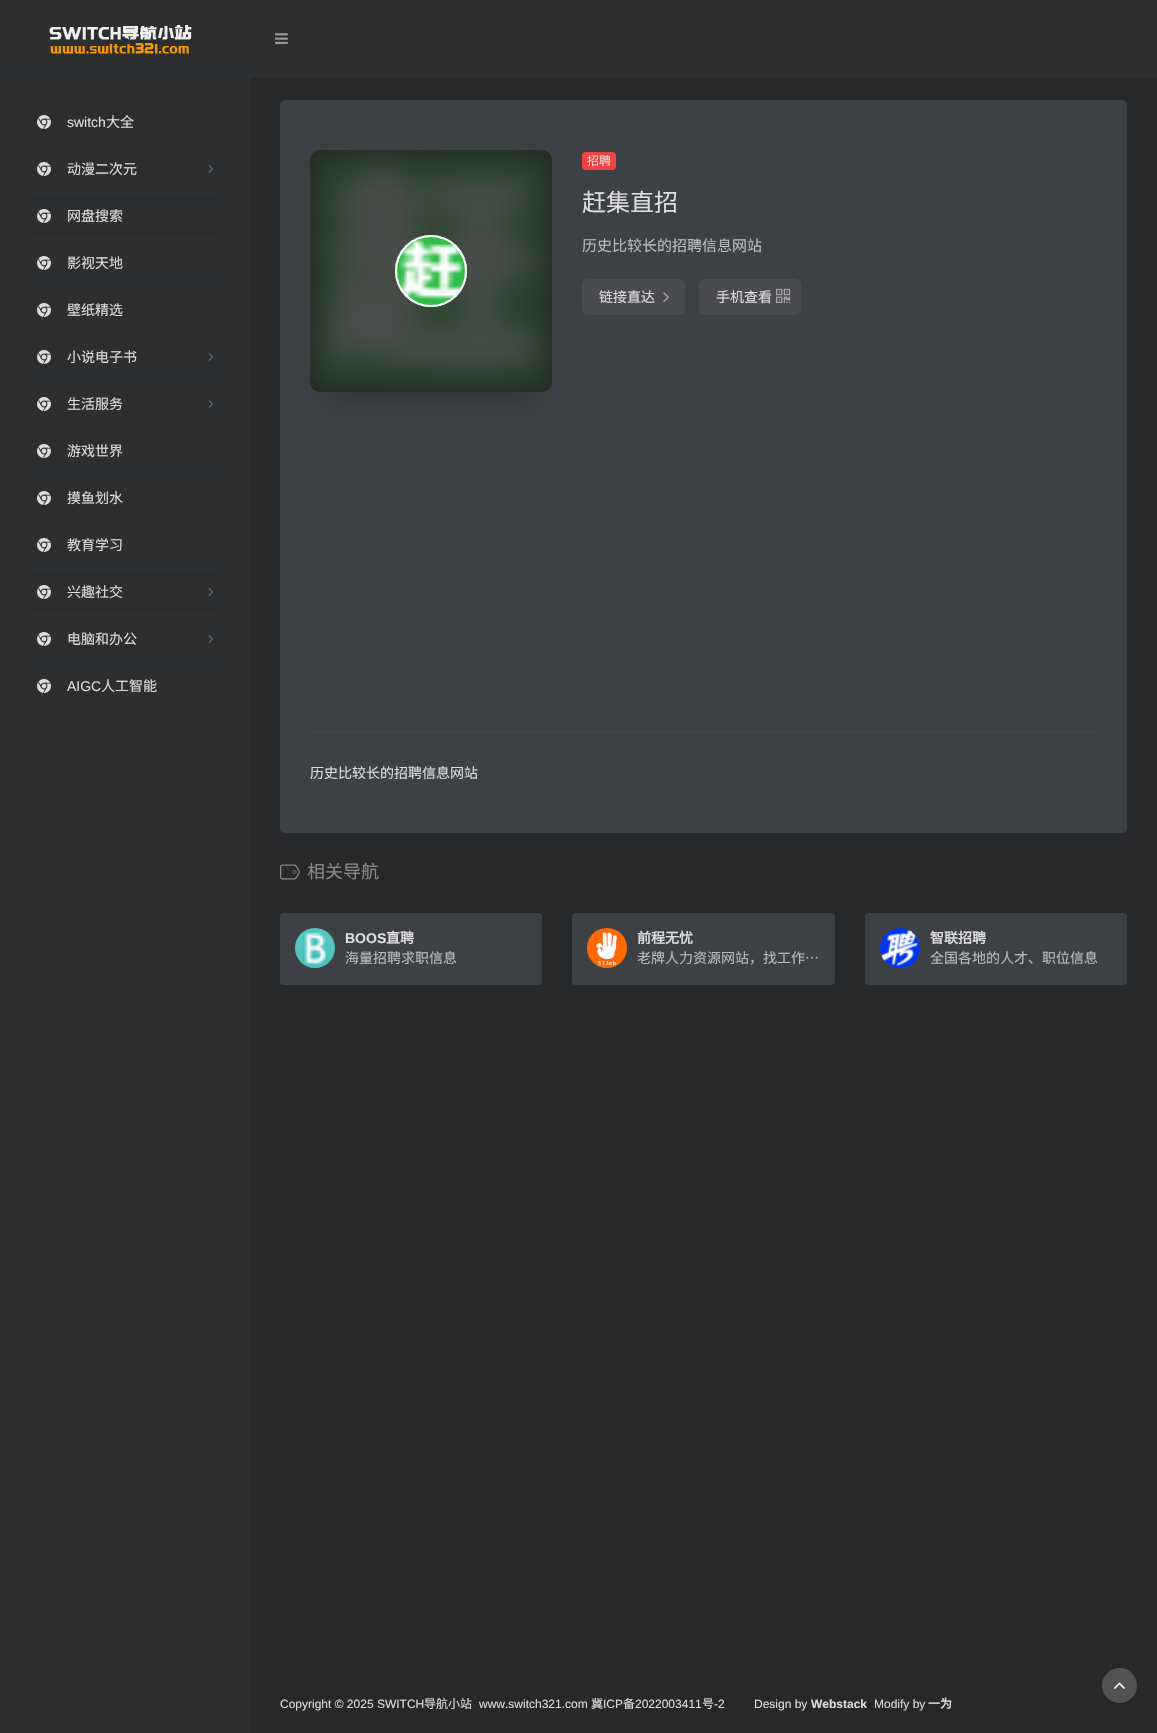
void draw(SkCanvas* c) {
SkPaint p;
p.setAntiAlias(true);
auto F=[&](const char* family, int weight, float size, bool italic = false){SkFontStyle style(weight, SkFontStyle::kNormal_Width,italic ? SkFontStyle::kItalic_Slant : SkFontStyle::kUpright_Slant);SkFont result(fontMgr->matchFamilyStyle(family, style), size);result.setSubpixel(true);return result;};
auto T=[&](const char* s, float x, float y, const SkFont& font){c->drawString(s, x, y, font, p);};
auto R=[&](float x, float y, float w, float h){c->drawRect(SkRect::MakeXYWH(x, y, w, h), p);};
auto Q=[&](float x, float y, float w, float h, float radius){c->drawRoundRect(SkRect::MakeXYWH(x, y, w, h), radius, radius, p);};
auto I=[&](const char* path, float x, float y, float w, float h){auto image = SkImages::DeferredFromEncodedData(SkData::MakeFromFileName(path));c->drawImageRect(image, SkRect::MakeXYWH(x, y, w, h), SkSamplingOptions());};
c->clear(0xff26282a);
p.setColor(0xff2c2e2f);
R(0,0,250,1733);
p.setColor(0xff313437);
R(0,78,250,1);
I("1.png",49,25,143,29);
R(30,145,190,1);
I("2.png",37,115,14,14);
auto f1 = F("Liberation Sans",400,14);
p.setColor(0xffdddddd);
T("switch",67,127,f1);
auto f2 = F("Noto Sans CJK SC",400,14);
T("大全",106,127,f2);
p.setColor(0xff313437);
R(30,192,190,1);
I("2.png",37,162,14,14);
p.setColor(0xffdddddd);
T("动漫二次元",67,174,f2);
I("3.png",208,165,5,8);
p.setColor(0xff313437);
R(30,239,190,1);
I("2.png",37,209,14,14);
p.setColor(0xffdddddd);
T("网盘搜索",67,221,f2);
p.setColor(0xff313437);
R(30,286,190,1);
I("2.png",37,256,14,14);
p.setColor(0xffdddddd);
T("影视天地",67,268,f2);
p.setColor(0xff313437);
R(30,333,190,1);
I("2.png",37,303,14,14);
p.setColor(0xffdddddd);
T("壁纸精选",67,315,f2);
p.setColor(0xff313437);
R(30,380,190,1);
I("2.png",37,350,14,14);
p.setColor(0xffdddddd);
T("小说电子书",67,362,f2);
I("3.png",208,353,5,8);
p.setColor(0xff313437);
R(30,427,190,1);
I("2.png",37,397,14,14);
p.setColor(0xffdddddd);
T("生活服务",67,409,f2);
I("3.png",208,400,5,8);
p.setColor(0xff313437);
R(30,474,190,1);
I("2.png",37,444,14,14);
p.setColor(0xffdddddd);
T("游戏世界",67,456,f2);
p.setColor(0xff313437);
R(30,521,190,1);
I("2.png",37,491,14,14);
p.setColor(0xffdddddd);
T("摸鱼划水",67,503,f2);
p.setColor(0xff313437);
R(30,568,190,1);
I("2.png",37,538,14,14);
p.setColor(0xffdddddd);
T("教育学习",67,550,f2);
p.setColor(0xff313437);
R(30,615,190,1);
I("2.png",37,585,14,14);
p.setColor(0xffdddddd);
T("兴趣社交",67,597,f2);
I("3.png",208,588,5,8);
p.setColor(0xff313437);
R(30,662,190,1);
I("2.png",37,632,14,14);
p.setColor(0xffdddddd);
T("电脑和办公",67,644,f2);
I("3.png",208,635,5,8);
p.setColor(0xff313437);
R(30,709,190,1);
I("2.png",37,679,14,14);
p.setColor(0xffdddddd);
T("AIGC",67,691,f1);
T("人工智能",101,691,f2);
p.setColor(0xff2c2e2f);
R(250,0,907,78);
I("4.png",275,33,13,11);
p.setColor(0xff3d4044);
Q(280,100,847,733,5);
p.setColor(0x26000000);
p.setMaskFilter(SkMaskFilter::MakeBlur(kNormal_SkBlurStyle, 10));
c->drawRect(SkRect::MakeXYWH(330,200,202,202),p);
p.setMaskFilter(nullptr);
p.setColor(0xff222222);
Q(310,150,242,242,10);
I("5.png",310,150,242,242);
p.setColor(0xffffffff);
c->drawCircle(431,271,36,p);
p.setStroke(true);
p.setStrokeWidth(2);
p.setColor(0xe6ffffff);
c->drawCircle(431,271,35,p);
I("6.png",397,237,68,68);
p.setStroke(false);
p.setColor(0xfff14141);
Q(582,152,34,18,4);
auto f3 = F("Noto Sans CJK SC",400,12);
p.setColor(0xffdddddd);
T("招聘",587,165,f3);
auto f4 = F("Noto Sans CJK SC",400,24);
T("赶集直招",582,211,f4);
auto f5 = F("Noto Sans CJK SC",400,15);
p.setColor(0xffbcbcbc);
T("历史比较长的招聘信息网站",582,251,f5);
p.setColor(0xff494b4f);
Q(582,279,103,36,6);
p.setColor(0xffdddddd);
T("链接直达",599,302,f2);
I("7.png",663,292,6,11);
p.setColor(0xff494b4f);
Q(699,279,102,36,6);
p.setColor(0xffdddddd);
T("手机查看",716,302,f2);
I("8.png",776,288,15,15);
p.setColor(0xff44474a);
R(310,732,787,1);
p.setColor(0xffdddddd);
T("历史比较长的招聘信息网站",310,778,f2);
I("9.png",280,864,20,16);
auto f6 = F("Noto Sans CJK SC",400,18);
p.setColor(0xff888888);
T("相关导航",307,878,f6);
p.setColor(0xff3d4044);
Q(280,913,262,72,4);
p.setColor(0xff484b4e);
c->drawCircle(315,948,20,p);
I("10.png",295,928,40,40);
auto f7 = F("Liberation Sans",700,14);
p.setColor(0xffdddddd);
T("BOOS",345,943,f7);
auto f8 = F("Noto Sans CJK SC",700,14);
T("直聘",386,943,f8);
p.setColor(0xffbcbcbc);
T("海量招聘求职信息",345,963,f2);
p.setColor(0xff3d4044);
Q(572,913,263,72,4);
p.setColor(0xff484b4e);
c->drawCircle(607,948,20,p);
I("11.png",587,928,40,40);
p.setColor(0xffdddddd);
T("前程无忧",637,943,f8);
p.setColor(0xffbcbcbc);
T("老牌人力资源网站，找工作…",637,963,f2);
p.setColor(0xff3d4044);
Q(865,913,262,72,4);
p.setColor(0xff484b4e);
c->drawCircle(900,948,20,p);
I("12.png",880,928,40,40);
p.setColor(0xffdddddd);
T("智联招聘",930,943,f8);
p.setColor(0xffbcbcbc);
T("全国各地的人才、职位信息",930,963,f2);
auto f9 = F("Liberation Sans",400,12);
p.setColor(0xffdddddd);
T("Copyright © 2025 SWITCH",280,1708,f9);
T("导航小站",424,1708,f3);
T("www.switch321.com",479,1708,f9);
T("冀",591,1708,f3);
T("ICP",603,1708,f9);
T("备",623,1708,f3);
T("2022003411",635,1708,f9);
T("号",702,1708,f3);
T("-2",714,1708,f9);
T("Design by",754,1708,f9);
auto f10 = F("Liberation Sans",700,12);
T("Webstack",811,1708,f10);
T("Modify by",874,1708,f9);
auto f11 = F("Noto Sans CJK SC",700,12);
T("一为",928,1708,f11);
p.setColor(0xff515253);
c->drawCircle(1119.5,1685.5,17.5,p);
I("13.png",1113,1682,12,7);
}
